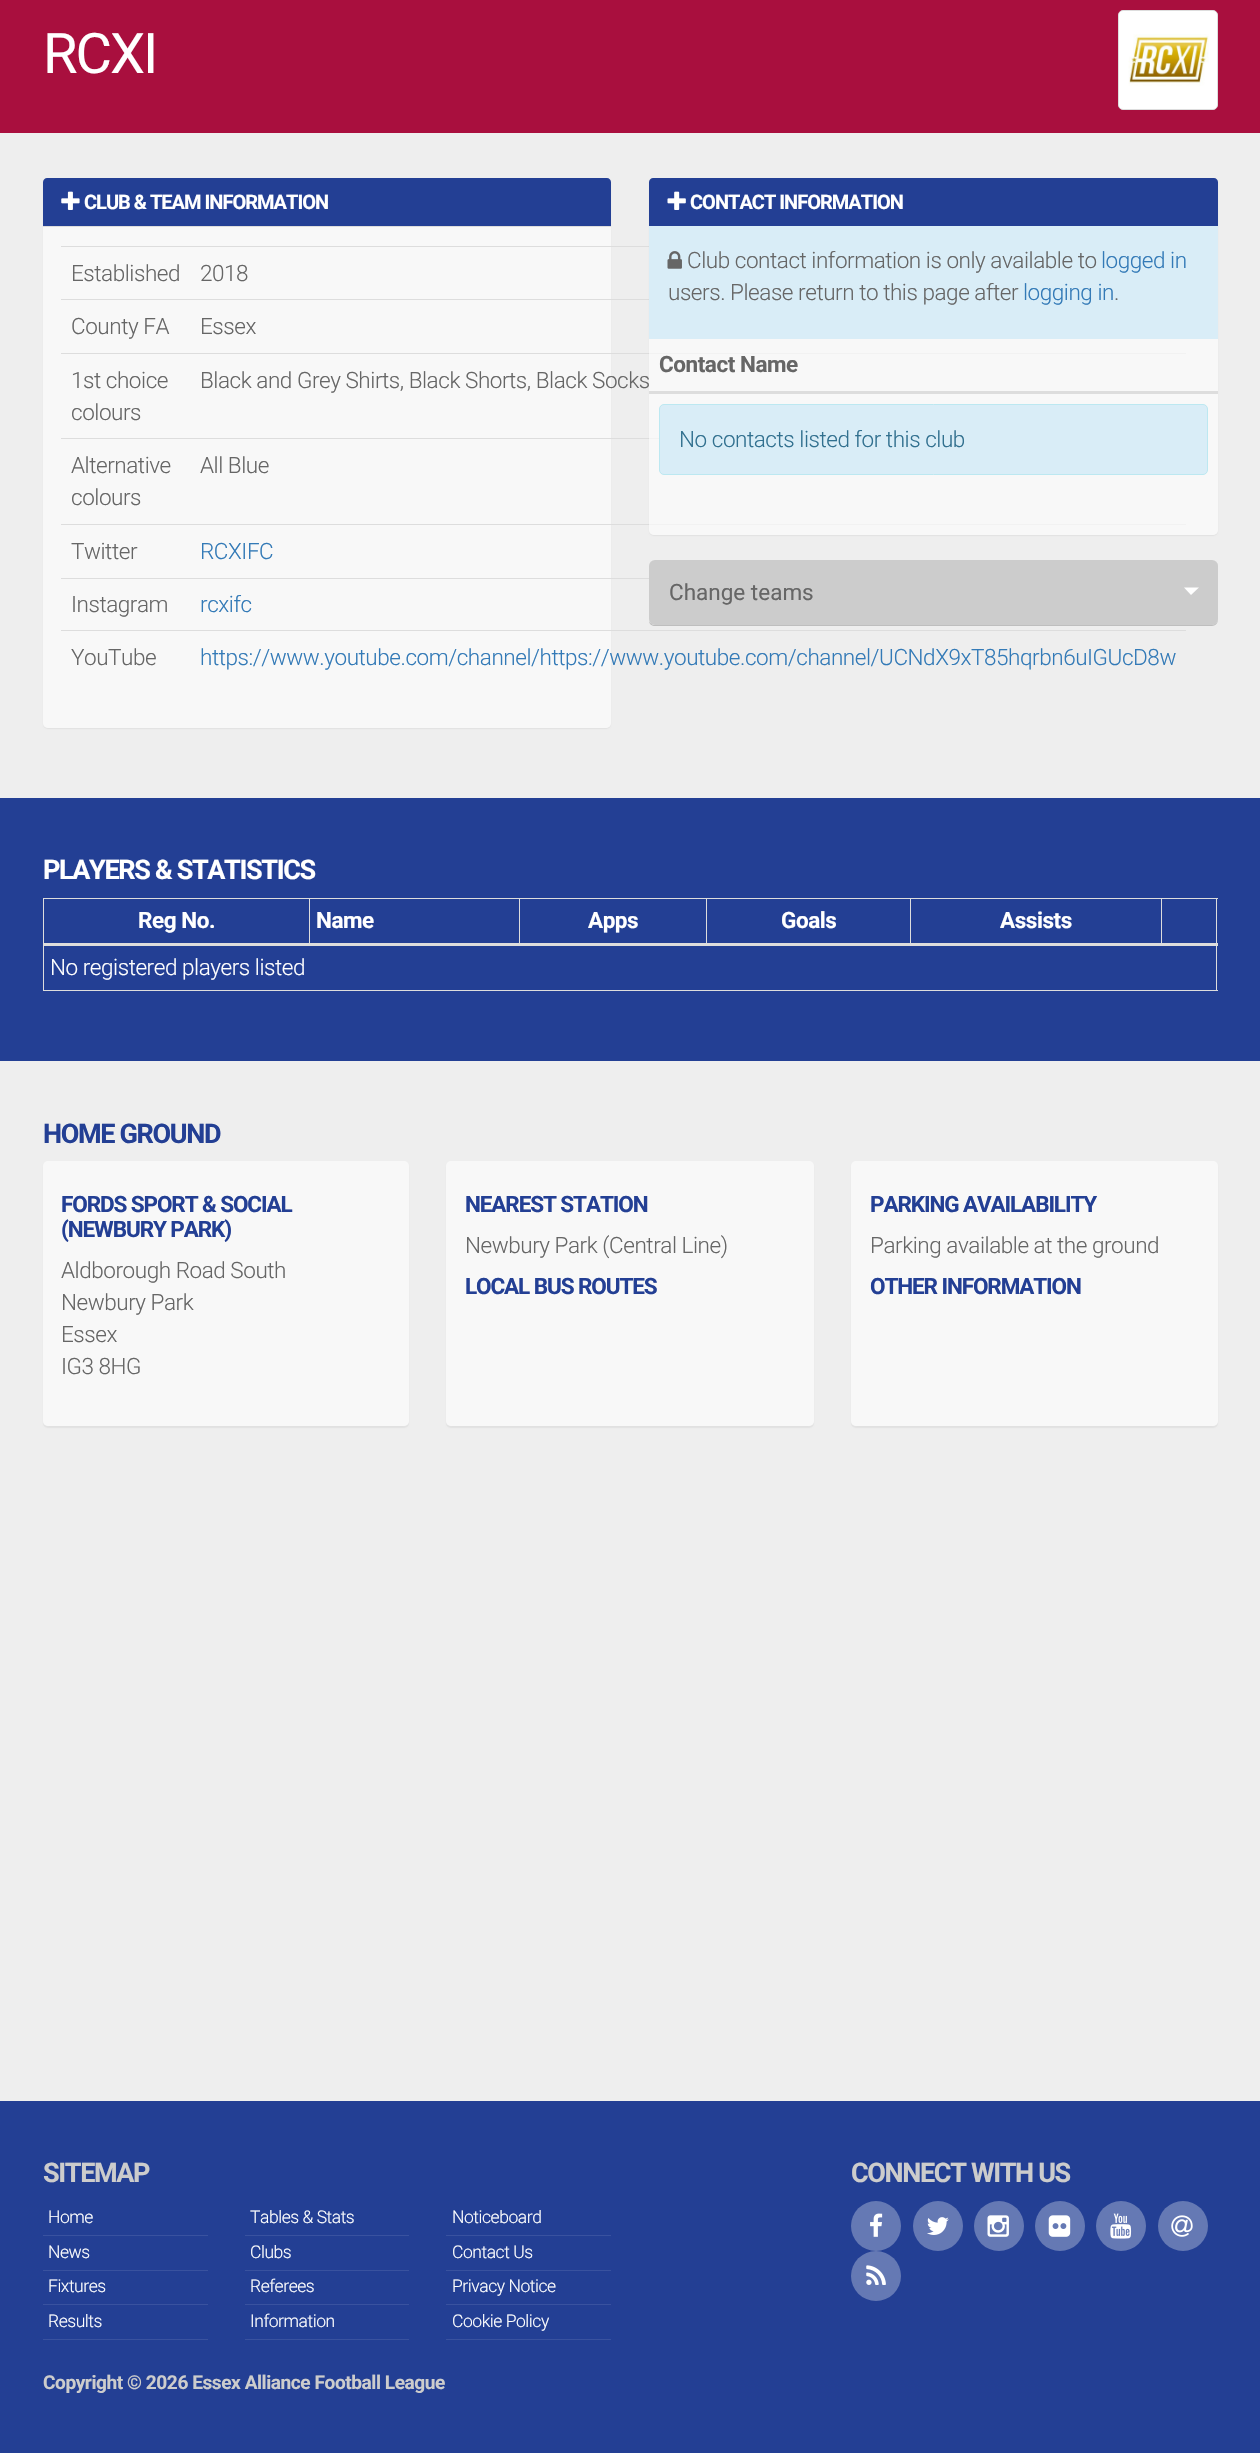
void draw(SkCanvas* c) {
SkPaint p;
p.setAntiAlias(true);
auto F=[&](const char* family, int weight, float size, bool italic = false){SkFontStyle style(weight, SkFontStyle::kNormal_Width,italic ? SkFontStyle::kItalic_Slant : SkFontStyle::kUpright_Slant);SkFont result(fontMgr->matchFamilyStyle(family, style), size);result.setSubpixel(true);return result;};
auto T=[&](const char* s, float x, float y, const SkFont& font){c->drawString(s, x, y, font, p);};
auto L=[&](const char* s, float x, float y, const SkFont& font, const SkPaint& ink, float letter, float word){std::vector<SkGlyphID> glyphs(font.countText(s, strlen(s), SkTextEncoding::kUTF8));std::vector<float> xs(glyphs.size());font.textToGlyphs(s, strlen(s), SkTextEncoding::kUTF8, glyphs);font.getXPos(glyphs, xs, x);float extra = 0;for (size_t i = 0; i < glyphs.size(); i++) {xs[i] += extra;extra += letter + word * (glyphs[i] == font.unicharToGlyph(' '));}c->drawTextBlob(SkTextBlob::MakeFromPosHGlyphs(glyphs, xs, y, font), 0, 0, ink);};
auto R=[&](float x, float y, float w, float h){c->drawRect(SkRect::MakeXYWH(x, y, w, h), p);};
auto Q=[&](float x, float y, float w, float h, float radius){c->drawRoundRect(SkRect::MakeXYWH(x, y, w, h), radius, radius, p);};
auto I=[&](const char* path, float x, float y, float w, float h){auto image = SkImages::DeferredFromEncodedData(SkData::MakeFromFileName(path));c->drawImageRect(image, SkRect::MakeXYWH(x, y, w, h), SkSamplingOptions());};
auto P=[&](const char* data, bool evenOdd = false){SkPath result = *SkParsePath::FromSVGString(data);if (evenOdd) result.setFillType(SkPathFillType::kEvenOdd);return result;};
c->clear(0xffeeeeee);
p.setColor(0xffa90f3e);
R(0,0,1260,133);
auto f1 = F("Roboto",400,56);
p.setColor(0xffffffff);
L("RCXI",43,73,f1,p,-2,0);
c->drawRoundRect(SkRect::MakeXYWH(1118.5,10.5,99,99),4.5,4.5,p);
p.setStroke(true);
p.setStrokeWidth(1);
p.setColor(0xffdddddd);
c->drawRoundRect(SkRect::MakeXYWH(1118.5,10.5,99,99),4.5,4.5,p);
I("1.png",1128,34,81,52);
c->save();
c->clipPath(P("M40 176h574v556h-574zm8 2h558c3 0 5 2 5 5v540c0 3-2 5-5 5h-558c-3 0-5-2-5-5v-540c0-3 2-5 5-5z",true),true);
p.setStroke(false);
p.setColor(0x0d000000);
p.setMaskFilter(SkMaskFilter::MakeBlur(kNormal_SkBlurStyle, .5));
c->drawRoundRect(SkRect::MakeXYWH(43,179,568,550),5,5,p);
p.setMaskFilter(nullptr);
c->restore();
p.setColor(0x99ffffff);
Q(43,178,568,550,5);
p.setColor(0xff233f94);
c->drawPath(P("M47 178h560c2 0 4 2 4 4v44h-568v-44c0-2 2-4 4-4z"),p);
I("2.png",61,191,19,19);
auto f2 = F("Roboto",700,20);
p.setColor(0xffffffff);
L("CLUB & TEAM INFORMATION",84,209,f2,p,-1,0);
p.setColor(0xffdddddd);
R(43,226,568,1);
auto f3 = F("Roboto",300,22.5);
p.setColor(0xff666666);
L("Established",71,281,f3,p,-.45,0);
p.setColor(0xffdddddd);
R(61,246,588,1);
p.setColor(0xff666666);
L("2018",200,281,f3,p,-.45,0);
L("County FA",71,334,f3,p,-.45,0);
p.setColor(0xffdddddd);
R(61,299,588,1);
p.setColor(0xff666666);
L("Essex",200,334,f3,p,-.45,0);
L("1st choice",71,388,f3,p,-.45,0);
L("colours",71,420,f3,p,-.45,0);
p.setColor(0xffdddddd);
R(61,353,1125,1);
p.setColor(0xff666666);
L("Black and Grey Shirts, Black Shorts, Black Socks",200,388,f3,p,-.45,0);
L("Alternative",71,473,f3,p,-.45,0);
L("colours",71,505,f3,p,-.45,0);
p.setColor(0xffdddddd);
R(61,438,598,1);
p.setColor(0xff666666);
L("All Blue",200,473,f3,p,-.45,0);
L("Twitter",71,559,f3,p,-.45,0);
p.setColor(0xffdddddd);
R(61,524,1125,1);
p.setColor(0xff337ab7);
L("RCXIFC",200,559,f3,p,-.45,0);
p.setColor(0xff666666);
L("Instagram",71,612,f3,p,-.45,0);
p.setColor(0xffdddddd);
R(61,578,588,1);
p.setColor(0xff337ab7);
L("rcxifc",200,612,f3,p,-.45,0);
p.setColor(0xff666666);
L("YouTube",71,665,f3,p,-.45,0);
p.setColor(0xffdddddd);
R(61,630,1125,1);
p.setColor(0xff337ab7);
L("https://www.youtube.com/channel/https://www.youtube.com/channel/UCNdX9xT85hqrbn6uIGUcD8w",200,665,f3,p,-.45,0);
c->save();
c->clipPath(P("M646 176h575v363h-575zm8 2h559c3 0 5 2 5 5v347c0 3-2 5-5 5h-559c-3 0-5-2-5-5v-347c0-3 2-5 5-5z",true),true);
p.setColor(0x0d000000);
p.setMaskFilter(SkMaskFilter::MakeBlur(kNormal_SkBlurStyle, .5));
c->drawRoundRect(SkRect::MakeXYWH(649,179,569,357),5,5,p);
p.setMaskFilter(nullptr);
c->restore();
p.setColor(0x99ffffff);
Q(649,178,569,357,5);
p.setColor(0xff233f94);
c->drawPath(P("M653 178h561c2 0 4 2 4 4v44h-569v-44c0-2 2-4 4-4z"),p);
I("3.png",667,191,19,19);
p.setColor(0xffffffff);
L("CONTACT INFORMATION",690,209,f2,p,-1,0);
p.setColor(0xffd9edf7);
R(649,226,569,113);
I("4.png",667,251,15,18);
p.setColor(0xff666666);
L("Club contact information is only available to",687,268,f3,p,-.45,0);
p.setColor(0xff337ab7);
L("logged in",1101,268,f3,p,-.45,0);
p.setColor(0xff666666);
L("users. Please return to this page after",668,300,f3,p,-.45,0);
p.setColor(0xff337ab7);
L("logging in",1023,300,f3,p,-.45,0);
p.setColor(0xff666666);
L(".",1114,300,f3,p,-.45,0);
p.setColor(0xffdddddd);
R(649,391,569,3);
auto f4 = F("Roboto",700,22.5);
p.setColor(0xff666666);
L("Contact Name",659,372,f4,p,-.45,0);
p.setColor(0xffd9edf7);
c->drawRoundRect(SkRect::MakeXYWH(659.5,404.5,548,70),4.5,4.5,p);
p.setStroke(true);
p.setColor(0xffbce8f1);
c->drawRoundRect(SkRect::MakeXYWH(659.5,404.5,548,70),4.5,4.5,p);
p.setStroke(false);
p.setColor(0xff31708f);
L("No contacts listed for this club",679,447,f3,p,-.45,0);
p.setColor(0xffbebebe);
c->drawPath(P("M649 621c0 3 3 5 6 5h557c3 0 6-3 6-6v-53c0-1 0-3-1-4l1 3v53c0 3-3 6-7 6h-556c-3 0-5-2-6-4z"),p);
p.setColor(0xffcccccc);
Q(649,560,569,65,6);
auto f5 = F("Roboto",400,22.5);
p.setColor(0xff666666);
T("Change teams",669,600,f5);
p.setColor(0xffffffff);
c->drawPath(P("M1184 587.5h15l-8 7.5z"),p);
p.setColor(0xff233f94);
R(0,798,1260,263);
auto f6 = F("Roboto",700,27);
p.setColor(0xffffffff);
L("PLAYERS & STATISTICS",43,879,f6,p,-1.35,0);
p.setColor(0xffdddddd);
R(43,898,1175,1);
R(1216,898,1,93);
R(43,990,1175,1);
R(43,898,1,93);
R(1161,898,1,47);
R(309,898,1,47);
R(519,898,1,47);
R(706,898,1,47);
R(910,898,1,47);
R(43,943,1175,3);
p.setColor(0xffffffff);
L("Reg No.",138,928,f4,p,-.45,0);
L("Name",316,928,f4,p,-.45,0);
L("Apps",588,928,f4,p,-.45,0);
L("Goals",781,928,f4,p,-.45,0);
L("Assists",1000,928,f4,p,-.45,0);
L("No registered players listed",50,975,f3,p,-.45,0);
p.setColor(0xff233f94);
L("HOME GROUND",43,1143,f6,p,-1.35,0);
c->save();
c->clipPath(P("M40 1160h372v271h-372zm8 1h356c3 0 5 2 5 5v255c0 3-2 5-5 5h-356c-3 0-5-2-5-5v-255c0-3 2-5 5-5z",true),true);
p.setColor(0x0d000000);
p.setMaskFilter(SkMaskFilter::MakeBlur(kNormal_SkBlurStyle, .5));
c->drawRoundRect(SkRect::MakeXYWH(43,1163,366,265),5,5,p);
p.setMaskFilter(nullptr);
c->restore();
p.setColor(0x99ffffff);
Q(43,1161,366,265,5);
p.setColor(0xff233f94);
L("FORDS SPORT & SOCIAL",61,1212,f4,p,-1.1,0);
L("(NEWBURY PARK)",61,1237,f4,p,-1.1,0);
p.setColor(0xff666666);
L("Aldborough Road South",61,1278,f3,p,-.45,0);
L("Newbury Park",61,1310,f3,p,-.45,0);
L("Essex",61,1342,f3,p,-.45,0);
L("IG3 8HG",61,1374,f3,p,-.45,0);
c->save();
c->clipPath(P("M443 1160h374v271h-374zm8 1h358c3 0 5 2 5 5v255c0 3-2 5-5 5h-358c-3 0-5-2-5-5v-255c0-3 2-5 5-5z",true),true);
p.setColor(0x0d000000);
p.setMaskFilter(SkMaskFilter::MakeBlur(kNormal_SkBlurStyle, .5));
c->drawRoundRect(SkRect::MakeXYWH(446,1163,368,265),5,5,p);
p.setMaskFilter(nullptr);
c->restore();
p.setColor(0x99ffffff);
Q(446,1161,368,265,5);
p.setColor(0xff233f94);
L("NEAREST STATION",465,1212,f4,p,-1.1,0);
p.setColor(0xff666666);
L("Newbury Park (Central Line)",465,1253,f3,p,-.45,0);
p.setColor(0xff233f94);
L("LOCAL BUS ROUTES",465,1294,f4,p,-1.1,0);
c->save();
c->clipPath(P("M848 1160h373v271h-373zm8 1h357c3 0 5 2 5 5v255c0 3-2 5-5 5h-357c-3 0-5-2-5-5v-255c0-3 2-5 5-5z",true),true);
p.setColor(0x0d000000);
p.setMaskFilter(SkMaskFilter::MakeBlur(kNormal_SkBlurStyle, .5));
c->drawRoundRect(SkRect::MakeXYWH(851,1163,367,265),5,5,p);
p.setMaskFilter(nullptr);
c->restore();
p.setColor(0x99ffffff);
Q(851,1161,367,265,5);
p.setColor(0xff233f94);
L("PARKING AVAILABILITY",870,1212,f4,p,-1.1,0);
p.setColor(0xff666666);
L("Parking available at the ground",870,1253,f3,p,-.45,0);
p.setColor(0xff233f94);
L("OTHER INFORMATION",870,1294,f4,p,-1.1,0);
R(0,2101,1260,352);
p.setColor(0xffcccccc);
L("SITEMAP",43,2182,f6,p,-1.35,0);
p.setColor(0xff39529f);
R(43,2235,165,1);
auto f7 = F("Roboto",300,17.5);
p.setColor(0xffffffff);
L("Home",48,2223,f7,p,-.45,0);
p.setColor(0xff39529f);
R(43,2270,165,1);
p.setColor(0xffffffff);
L("News",48,2258,f7,p,-.45,0);
p.setColor(0xff39529f);
R(43,2304,165,1);
p.setColor(0xffffffff);
L("Fixtures",48,2292,f7,p,-.45,0);
p.setColor(0xff39529f);
R(43,2339,165,1);
p.setColor(0xffffffff);
L("Results",48,2327,f7,p,-.45,0);
p.setColor(0xffcccccc);
L("CONNECT WITH US",851,2182,f6,p,-1.35,0);
p.setColor(0xff6579b4);
c->drawCircle(876,2226,25,p);
I("5.png",870,2213,13,24);
c->drawCircle(938,2226,25,p);
I("6.png",927,2217,22,18);
c->drawCircle(999,2226,25,p);
I("7.png",987,2215,22,22);
c->drawCircle(1060,2226,25,p);
I("8.png",1048,2215,23,22);
c->drawCircle(1121,2226,25,p);
I("9.png",1110,2213,22,26);
c->drawCircle(1183,2226,25,p);
I("10.png",1171,2215,22,22);
c->drawCircle(876,2276,25,p);
I("11.png",866,2265,20,20);
p.setColor(0xff39529f);
R(245,2235,164,1);
p.setColor(0xffffffff);
L("Tables & Stats",250,2223,f7,p,-.45,0);
p.setColor(0xff39529f);
R(245,2270,164,1);
p.setColor(0xffffffff);
L("Clubs",250,2258,f7,p,-.45,0);
p.setColor(0xff39529f);
R(245,2304,164,1);
p.setColor(0xffffffff);
L("Referees",250,2292,f7,p,-.45,0);
p.setColor(0xff39529f);
R(245,2339,164,1);
p.setColor(0xffffffff);
L("Information",250,2327,f7,p,-.45,0);
p.setColor(0xff39529f);
R(446,2235,165,1);
p.setColor(0xffffffff);
L("Noticeboard",452,2223,f7,p,-.45,0);
p.setColor(0xff39529f);
R(446,2270,165,1);
p.setColor(0xffffffff);
L("Contact Us",452,2258,f7,p,-.45,0);
p.setColor(0xff39529f);
R(446,2304,165,1);
p.setColor(0xffffffff);
L("Privacy Notice",452,2292,f7,p,-.45,0);
p.setColor(0xff39529f);
R(446,2339,165,1);
p.setColor(0xffffffff);
L("Cookie Policy",452,2327,f7,p,-.45,0);
auto f8 = F("Roboto",700,19.1);
p.setColor(0xffcccccc);
L("Copyright © 2026 Essex Alliance Football League",43,2389,f8,p,-.45,0);
}
